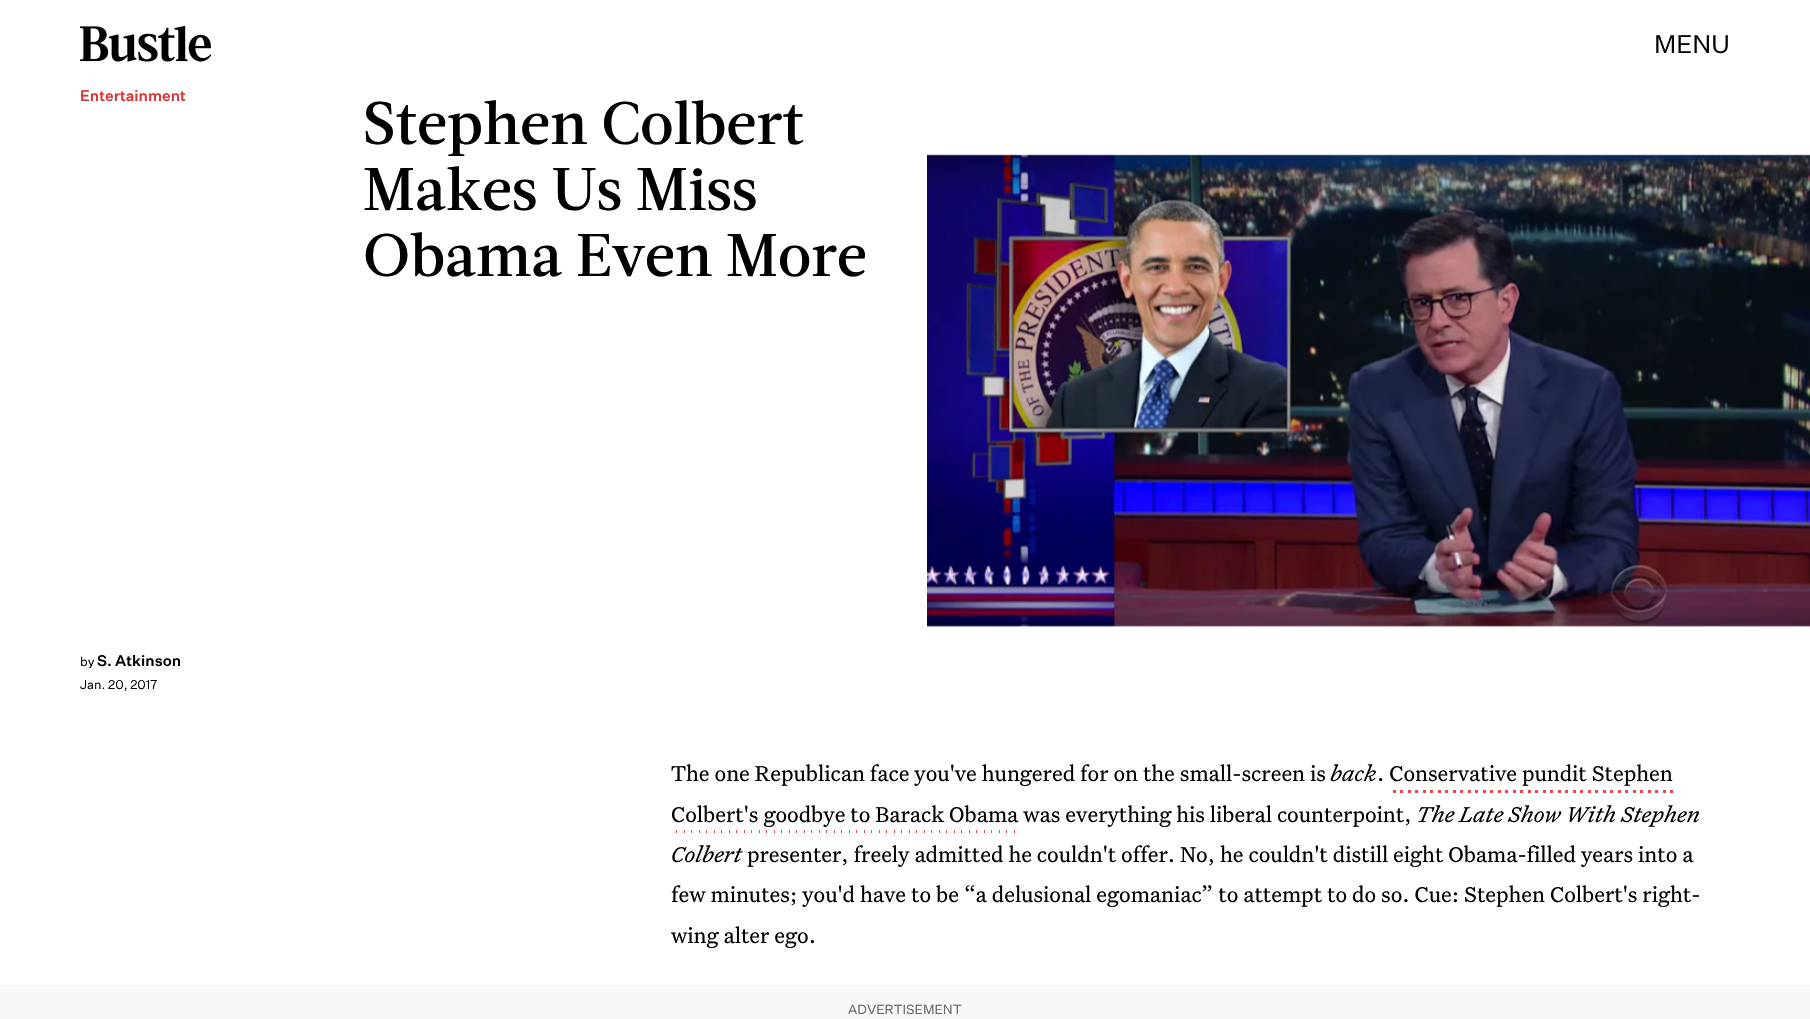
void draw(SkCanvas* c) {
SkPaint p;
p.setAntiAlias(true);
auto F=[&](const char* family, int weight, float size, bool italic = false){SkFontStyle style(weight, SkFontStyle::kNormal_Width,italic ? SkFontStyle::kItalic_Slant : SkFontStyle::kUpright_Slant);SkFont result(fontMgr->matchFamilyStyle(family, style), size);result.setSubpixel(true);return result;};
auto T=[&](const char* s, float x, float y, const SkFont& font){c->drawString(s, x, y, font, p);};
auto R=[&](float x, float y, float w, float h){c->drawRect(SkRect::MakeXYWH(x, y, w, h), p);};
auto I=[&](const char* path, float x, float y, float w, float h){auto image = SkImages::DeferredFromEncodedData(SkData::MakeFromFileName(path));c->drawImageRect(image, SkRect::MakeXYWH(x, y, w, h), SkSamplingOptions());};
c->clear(0xffffffff);
I("1.png",80,25,131,37);
auto f1 = F("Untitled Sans",400,25);
p.setColor(0xff000000);
T("MENU",1654,53,f1);
auto f2 = F("Untitled Sans",500,15);
p.setColor(0xffdb3336);
T("Entertainment",80,101,f2);
auto f3 = F("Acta",500,60);
p.setColor(0xff000000);
T("Stephen Colbert",363,144,f3);
T("Makes Us Miss",363,210,f3);
T("Obama Even More",363,276,f3);
auto f4 = F("Untitled Sans",400,12.5);
T("by",80,666,f4);
T("S. Atkinson",97,666,f2);
T("Jan. 20, 2017",80,689,f4);
I("2.png",927,154,883,473);
auto f5 = F("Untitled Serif",400,23);
T("The one Republican face you've hungered for on the small-screen is",671,781,f5);
auto f6 = F("Untitled Serif",400,23,true);
T("back",1330,781,f6);
T(". Conservative pundit Stephen",1377,781,f5);
I("3.png",1393,790,280,3);
T("Colbert's goodbye to Barack Obama was everything his liberal counterpoint,",671,822,f5);
T("The Late Show With Stephen",1416,822,f6);
I("4.png",676,830,339,3);
T("Colbert",671,862,f6);
T("presenter, freely admitted he couldn't offer. No, he couldn't distill eight Obama-filled years into a",747,862,f5);
T("few minutes; you'd have to be “a delusional egomaniac” to attempt to do so. Cue: Stephen Colbert's right-",671,902,f5);
T("wing alter ego.",671,943,f5);
p.setColor(0xfff8f8f8);
R(0,985,1810,34);
auto f7 = F("Untitled Sans",400,13);
p.setColor(0xff636363);
T("ADVERTISEMENT",848,1014,f7);
}
